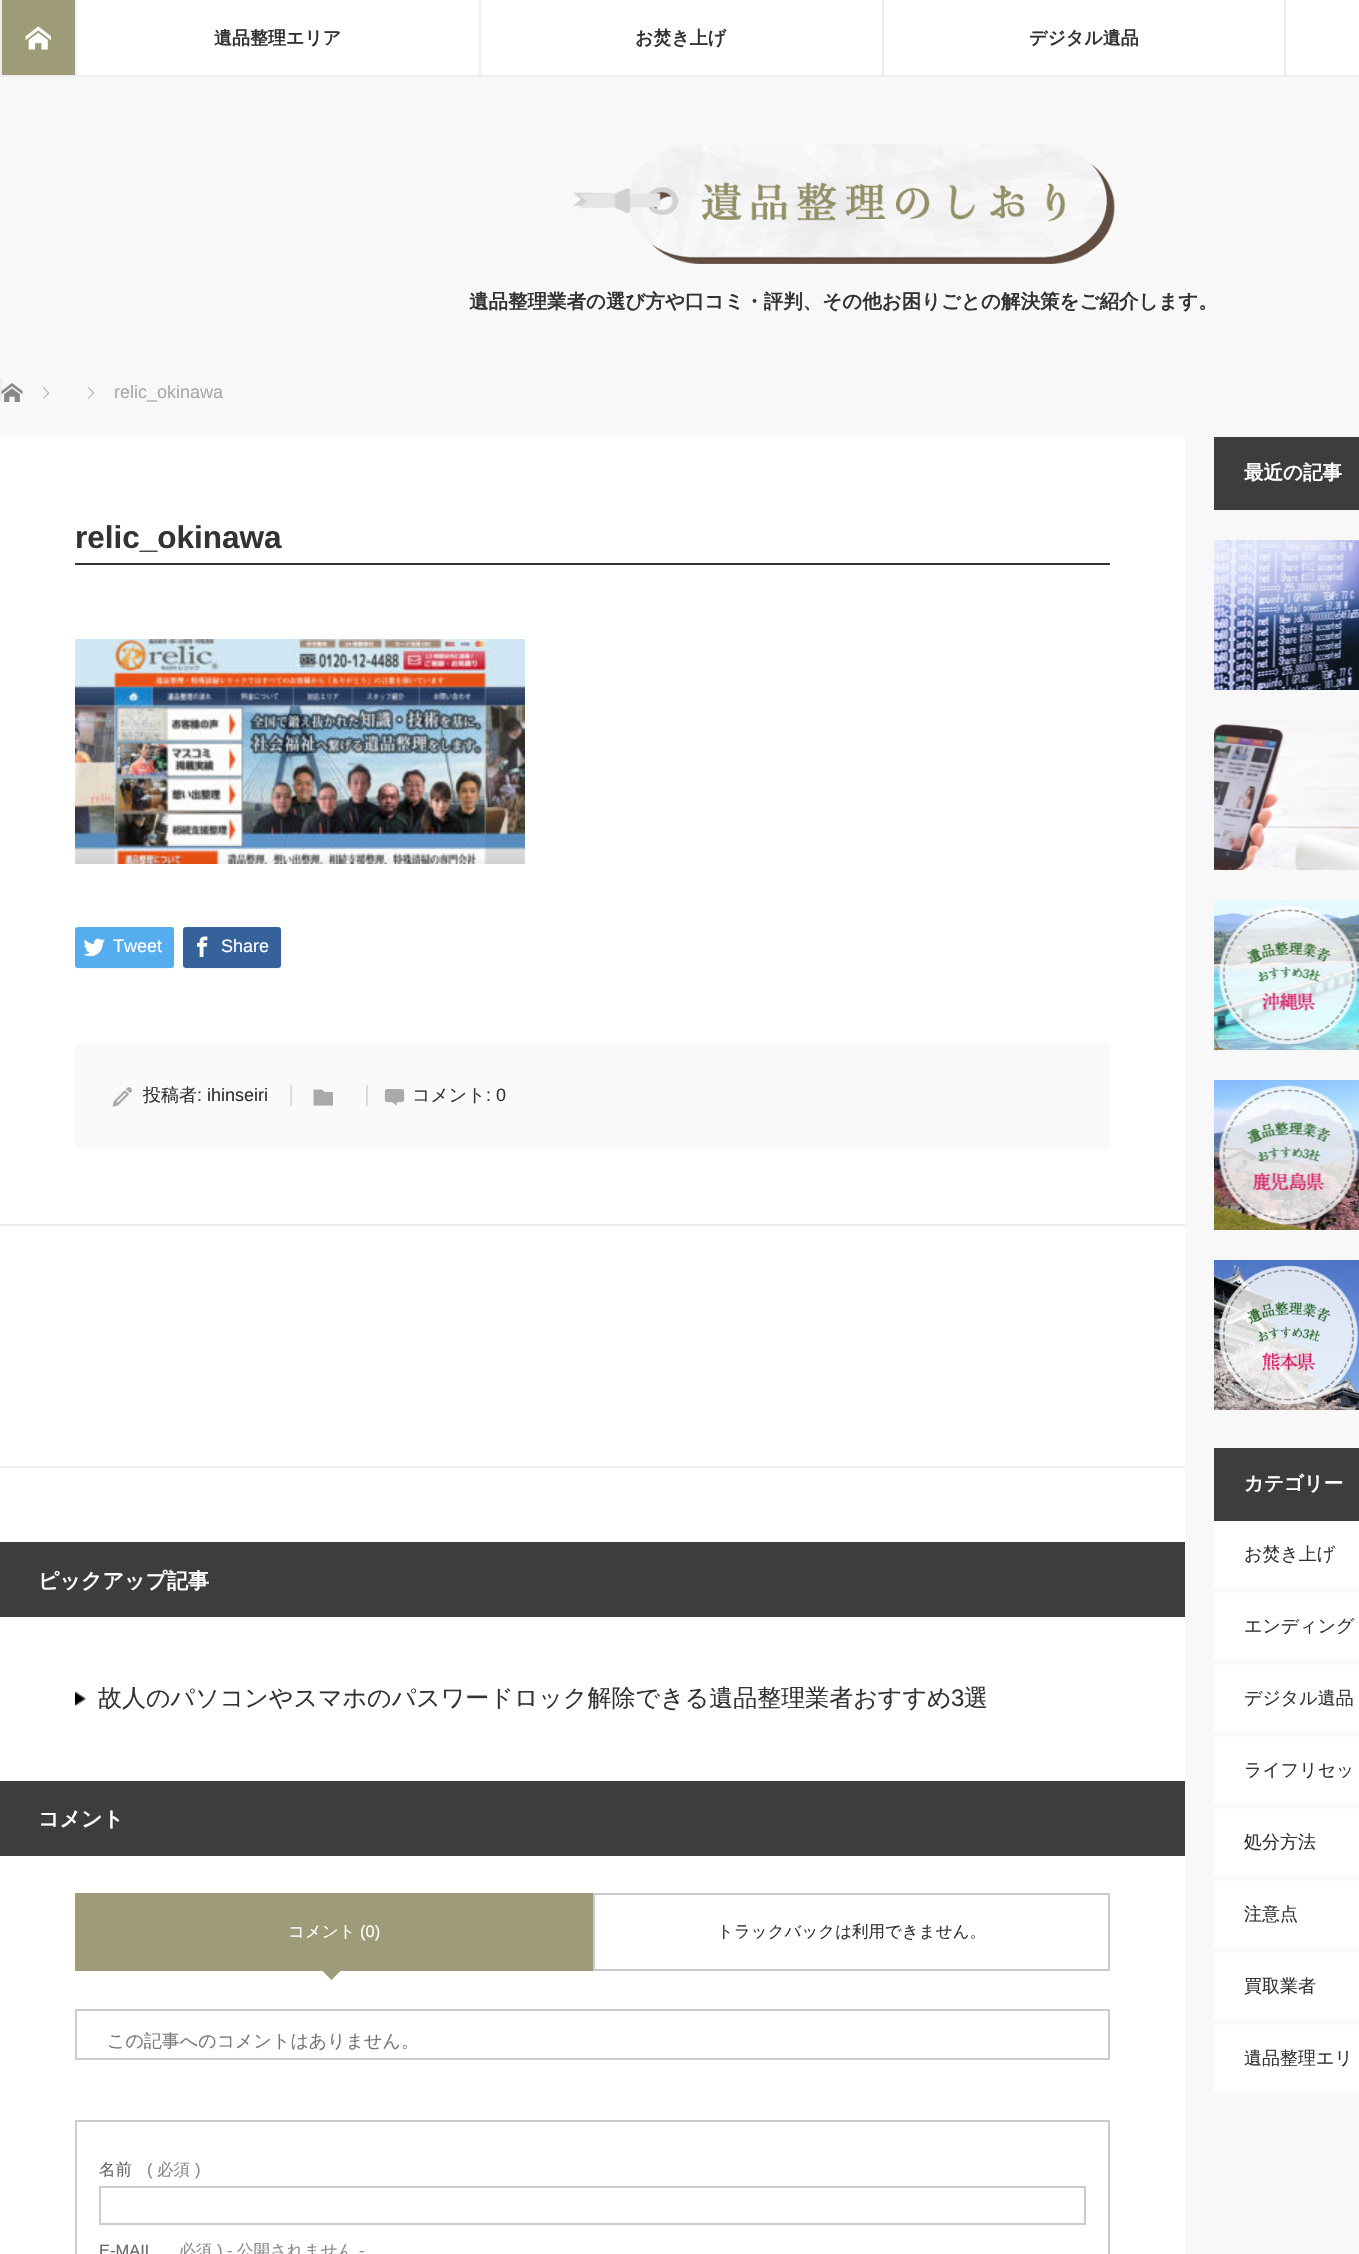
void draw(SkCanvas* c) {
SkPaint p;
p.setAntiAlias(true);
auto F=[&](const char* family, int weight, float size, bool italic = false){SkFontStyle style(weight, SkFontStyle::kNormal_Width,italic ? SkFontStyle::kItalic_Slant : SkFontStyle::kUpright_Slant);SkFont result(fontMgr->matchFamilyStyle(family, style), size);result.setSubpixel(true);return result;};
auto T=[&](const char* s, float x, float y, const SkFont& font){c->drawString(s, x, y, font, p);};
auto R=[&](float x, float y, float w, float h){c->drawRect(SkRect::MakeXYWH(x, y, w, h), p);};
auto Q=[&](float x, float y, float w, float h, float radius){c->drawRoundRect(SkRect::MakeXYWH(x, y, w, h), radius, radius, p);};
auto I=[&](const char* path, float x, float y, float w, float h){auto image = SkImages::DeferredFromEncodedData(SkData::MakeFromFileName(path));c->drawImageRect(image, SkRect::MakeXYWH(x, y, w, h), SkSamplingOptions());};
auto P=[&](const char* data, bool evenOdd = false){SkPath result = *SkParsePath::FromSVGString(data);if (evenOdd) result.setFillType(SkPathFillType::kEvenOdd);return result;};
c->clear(0xfff8f8f8);
p.setColor(0xffffffff);
R(77,0,1282,75);
p.setColor(0xffeeeeee);
R(0,75,1359,2);
p.setColor(0xff9d9b78);
R(2,0,73,75);
p.setColor(0xffeeeeee);
R(0,0,2,75);
I("1.png",25,26,26,24);
R(75,0,2,75);
auto f1 = F("WenQuanYi Zen Hei",700,18);
p.setColor(0xff333333);
T("遺品整理エリア",214,44,f1);
p.setColor(0xffeeeeee);
R(479,0,2,75);
p.setColor(0xff333333);
T("お焚き上げ",635,44,f1);
p.setColor(0xffeeeeee);
R(882,0,2,75);
p.setColor(0xff333333);
T("デジタル遺品",1029,44,f1);
p.setColor(0xffeeeeee);
R(1284,0,2,75);
I("2.png",573,144,542,120);
auto f2 = F("WenQuanYi Zen Hei",700,19.5);
p.setColor(0xff333333);
T("遺品整理業者の選び方や口コミ・評判、その他お困りごとの解決策をご紹介します。",469,308,f2);
p.setColor(0xffeeeeee);
R(0,378,2,23);
I("3.png",1,383,22,19);
I("4.png",43,387,7,12);
I("4.png",88,387,7,12);
auto f3 = F("Liberation Sans",400,18);
p.setColor(0xffaaaaaa);
T("relic_okinawa",114,398,f3);
p.setColor(0xffffffff);
R(0,437,1185,1817);
p.setColor(0xff333333);
R(75,563,1035,2);
auto f4 = F("Liberation Sans",700,31.5);
T("relic_okinawa",75,548,f4);
I("5.png",75,639,450,225);
p.setColor(0xfff7f7f7);
c->drawPath(P("M75 964v2c0 2 1 3 3 3h93c2 0 3-1 3-3v-2c0 2-1 4-3 4h-93c-2 0-3-2-3-4z"),p);
p.setColor(0xff55acee);
Q(75,927,99,41,3);
I("6.png",83,938,22,19);
p.setColor(0xffffffff);
T("Tweet",113,952,f3);
p.setColor(0xfff7f7f7);
c->drawPath(P("M183 964v2c0 2 1 3 3 3h92c2 0 3-1 3-3v-34l-1-2v34c0 2-1 4-2 4h-92c-2 0-3-2-3-4z"),p);
p.setColor(0xff35629a);
Q(183,927,98,41,3);
I("7.png",197,936,11,21);
p.setColor(0xffffffff);
T("Share",221,952,f3);
p.setColor(0xfffafafa);
R(75,1043,1035,106);
p.setColor(0xffdddddd);
R(290,1085,2,21);
I("8.png",112,1087,20,20);
auto f5 = F("WenQuanYi Zen Hei",500,18);
p.setColor(0xff333333);
T("投稿者",143,1101,f5);
T(": ihinseiri",197,1101,f3);
p.setColor(0xffdddddd);
R(366,1085,2,21);
p.setColor(0xffaaaaaa);
c->drawPath(P("M322 1089.5l2.5 2.5h8.5v13.5h-19.5v-16z"),p);
I("9.png",384,1089,21,17);
p.setColor(0xff333333);
T("コメント",412,1101,f5);
T(": 0",486,1101,f3);
p.setColor(0xffeeeeee);
R(0,1224,1185,2);
R(0,1466,1185,2);
p.setColor(0xff3d3d3d);
R(0,1542,1185,75);
auto f6 = F("WenQuanYi Zen Hei",700,21);
p.setColor(0xffffffff);
T("ピックアップ記事",38,1588,f6);
I("10.png",75,1692,11,14);
auto f7 = F("WenQuanYi Zen Hei",500,24);
p.setColor(0xff333333);
T("故人のパソコンやスマホのパスワードロック解除できる遺品整理業者おすすめ",98,1706,f7);
auto f8 = F("Liberation Sans",400,24);
T("3",951,1706,f8);
T("選",964,1706,f7);
p.setColor(0xff3d3d3d);
R(0,1781,1185,75);
p.setColor(0xffffffff);
T("コメント",38,1826,f6);
p.setColor(0xff9d9b78);
R(75,1893,518,78);
auto f9 = F("WenQuanYi Zen Hei",500,16.5);
p.setColor(0xffffffff);
T("コメント",288,1937,f9);
auto f10 = F("Liberation Sans",400,16.5);
T("(0)",360,1937,f10);
p.setColor(0xff9d9b78);
c->drawPath(P("M316.5 1965h30l-15 15z"),p);
p.setStroke(true);
p.setStrokeWidth(2);
p.setColor(0xffcccccc);
c->drawRect(SkRect::MakeXYWH(594,1894,515,76),p);
p.setStroke(false);
p.setColor(0xff333333);
T("トラックバックは利用できません。",717,1937,f9);
p.setStroke(true);
p.setColor(0xffcccccc);
c->drawRect(SkRect::MakeXYWH(76,2010,1033,49),p);
p.setStroke(false);
p.setColor(0xff777777);
T("この記事へのコメントはありません。",107,2047,f5);
p.setStroke(true);
p.setColor(0xffcccccc);
c->drawRect(SkRect::MakeXYWH(76,2121,1033,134),p);
p.setStroke(false);
p.setColor(0xff666666);
T("名前",99,2175,f9);
p.setColor(0xff888888);
T("(",147,2175,f10);
T("必須",157,2175,f9);
T(")",195,2175,f10);
p.setStroke(true);
p.setColor(0xffcccccc);
c->drawRect(SkRect::MakeXYWH(100,2187,985,37),p);
p.setStroke(false);
p.setColor(0xff666666);
T("E-MAIL",99,2256,f10);
p.setColor(0xff888888);
T("必須",179,2256,f9);
T(") -",217,2256,f10);
T("公開されません",237,2256,f9);
T("-",359,2256,f10);
p.setColor(0xff3d3d3d);
R(1214,437,145,73);
p.setColor(0xffffffff);
T("最近の記事",1244,479,f2);
I("11.png",1214,540,145,150);
I("12.png",1214,720,145,150);
I("13.png",1214,900,145,150);
I("14.png",1214,1080,145,150);
I("15.png",1214,1260,145,150);
p.setColor(0xff3d3d3d);
R(1214,1448,145,73);
p.setColor(0xffffffff);
T("カテゴリー",1244,1490,f2);
R(1214,1521,145,66);
p.setColor(0xff333333);
T("お焚き上げ",1244,1560,f5);
p.setColor(0xffffffff);
R(1214,1593,145,66);
p.setColor(0xff333333);
T("エンディング",1244,1632,f5);
p.setColor(0xffffffff);
R(1214,1665,145,66);
p.setColor(0xff333333);
T("デジタル遺品",1244,1704,f5);
p.setColor(0xffffffff);
R(1214,1737,145,66);
p.setColor(0xff333333);
T("ライフリセッ",1244,1776,f5);
p.setColor(0xffffffff);
R(1214,1809,145,66);
p.setColor(0xff333333);
T("処分方法",1244,1848,f5);
p.setColor(0xffffffff);
R(1214,1881,145,66);
p.setColor(0xff333333);
T("注意点",1244,1920,f5);
p.setColor(0xffffffff);
R(1214,1953,145,66);
p.setColor(0xff333333);
T("買取業者",1244,1992,f5);
p.setColor(0xffffffff);
R(1214,2025,145,66);
p.setColor(0xff333333);
T("遺品整理エリ",1244,2064,f5);
}
